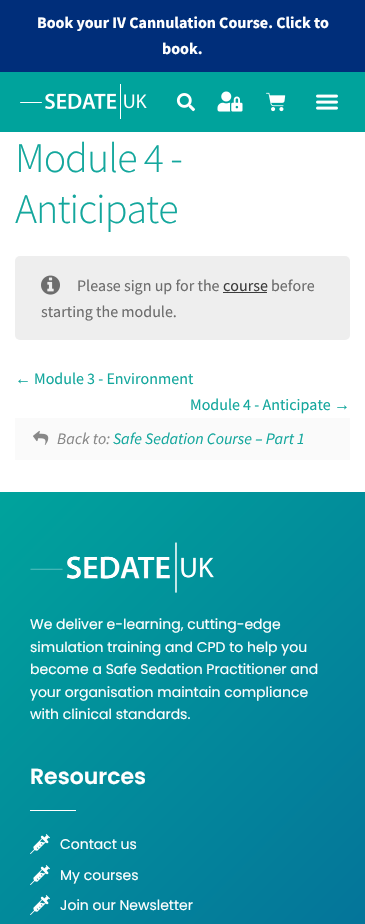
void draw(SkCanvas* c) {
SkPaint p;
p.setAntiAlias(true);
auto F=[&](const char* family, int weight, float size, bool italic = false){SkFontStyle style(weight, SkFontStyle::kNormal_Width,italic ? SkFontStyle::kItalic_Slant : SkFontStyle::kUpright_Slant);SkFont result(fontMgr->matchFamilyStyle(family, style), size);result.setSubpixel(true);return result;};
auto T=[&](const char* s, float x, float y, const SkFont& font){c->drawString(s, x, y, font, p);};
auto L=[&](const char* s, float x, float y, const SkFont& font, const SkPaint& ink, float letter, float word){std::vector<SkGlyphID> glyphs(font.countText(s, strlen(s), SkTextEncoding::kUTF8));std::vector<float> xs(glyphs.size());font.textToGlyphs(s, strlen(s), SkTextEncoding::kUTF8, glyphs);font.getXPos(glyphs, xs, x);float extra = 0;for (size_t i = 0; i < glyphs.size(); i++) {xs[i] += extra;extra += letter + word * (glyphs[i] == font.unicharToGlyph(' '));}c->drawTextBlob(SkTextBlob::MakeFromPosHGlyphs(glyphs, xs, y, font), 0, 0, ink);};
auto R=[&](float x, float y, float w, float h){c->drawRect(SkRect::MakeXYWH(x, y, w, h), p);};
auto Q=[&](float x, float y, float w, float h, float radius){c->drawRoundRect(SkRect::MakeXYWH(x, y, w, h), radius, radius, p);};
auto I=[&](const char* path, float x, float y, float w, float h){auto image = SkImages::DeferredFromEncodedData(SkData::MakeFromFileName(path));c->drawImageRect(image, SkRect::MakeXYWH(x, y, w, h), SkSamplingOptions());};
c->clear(0xffffffff);
p.setColor(0xff002e7a);
R(0,0,365,72);
auto f1 = F("Source Sans Pro",700,16);
p.setColor(0xffffffff);
T("Book your IV Cannulation Course. Click to",37,28,f1);
T("book.",162,54,f1);
p.setColor(0xff00a39c);
R(0,72,365,60);
I("1.png",20,84,127,35);
I("2.png",176,93,19,19);
I("3.png",217,91,26,21);
I("4.png",266,92,20,20);
I("5.png",316,94,22,16);
auto f2 = F("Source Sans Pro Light",300,42);
p.setColor(0xff14a79d);
L("Module 4 -",15,172,f2,p,-1,0);
L("Anticipate",15,223,f2,p,-1,0);
p.setColor(0xffeeeeee);
Q(15,256,335,84,5);
I("6.png",41,275,19,20);
auto f3 = F("Source Sans Pro",400,16);
p.setColor(0xff6d6d6d);
T("Please sign up for the",77,291,f3);
p.setColor(0xff3c3c3c);
T("course",223,291,f3);
R(223,292,44,1);
p.setColor(0xff6d6d6d);
T("before",271,291,f3);
T("starting the module.",41,317,f3);
auto f4 = F("Liberation Sans",400,16);
p.setColor(0xff14a79d);
T("←",15,384,f4);
T("Module 3 - Environment",34,384,f3);
T("Module 4 - Anticipate",190,410,f3);
T("→",334,410,f4);
p.setColor(0xfffafafa);
R(15,418,335,42);
I("7.png",33,430,16,15);
auto f5 = F("Source Sans Pro",400,16,true);
p.setColor(0xff888888);
T("Back to:",57,444,f5);
p.setColor(0xff14a79d);
T("Safe Sedation Course – Part 1",113,444,f5);
{
const SkColor colors[] = {0xff00a39c,0xff075b99};
const float stops[] = {0,1};
const SkPoint ends[] = {{-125,618}, {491,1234}};
p.setShader(SkGradientShader::MakeLinear(ends, colors, stops, 2, SkTileMode::kClamp));
p.setAlpha(255);
}
R(0,492,365,432);
I("8.png",30,542,184,51);
auto f6 = F("Poppins",400,14);
p.setShader(nullptr);
p.setColor(0xffffffff);
T("We deliver e-learning, cutting-edge",30,629,f6);
T("simulation training and CPD to help you",30,652,f6);
T("become a Safe Sedation Practitioner and",30,674,f6);
T("your organisation maintain compliance",30,697,f6);
T("with clinical standards.",30,719,f6);
auto f7 = F("Poppins",600,22);
T("Resources",30,784,f7);
R(30,810,46,1);
I("9.png",30,834,20,20);
T("Contact us",60,849,f6);
I("10.png",30,865,20,20);
T("My courses",60,880,f6);
I("11.png",30,895,20,20);
T("Join our Newsletter",60,910,f6);
}
